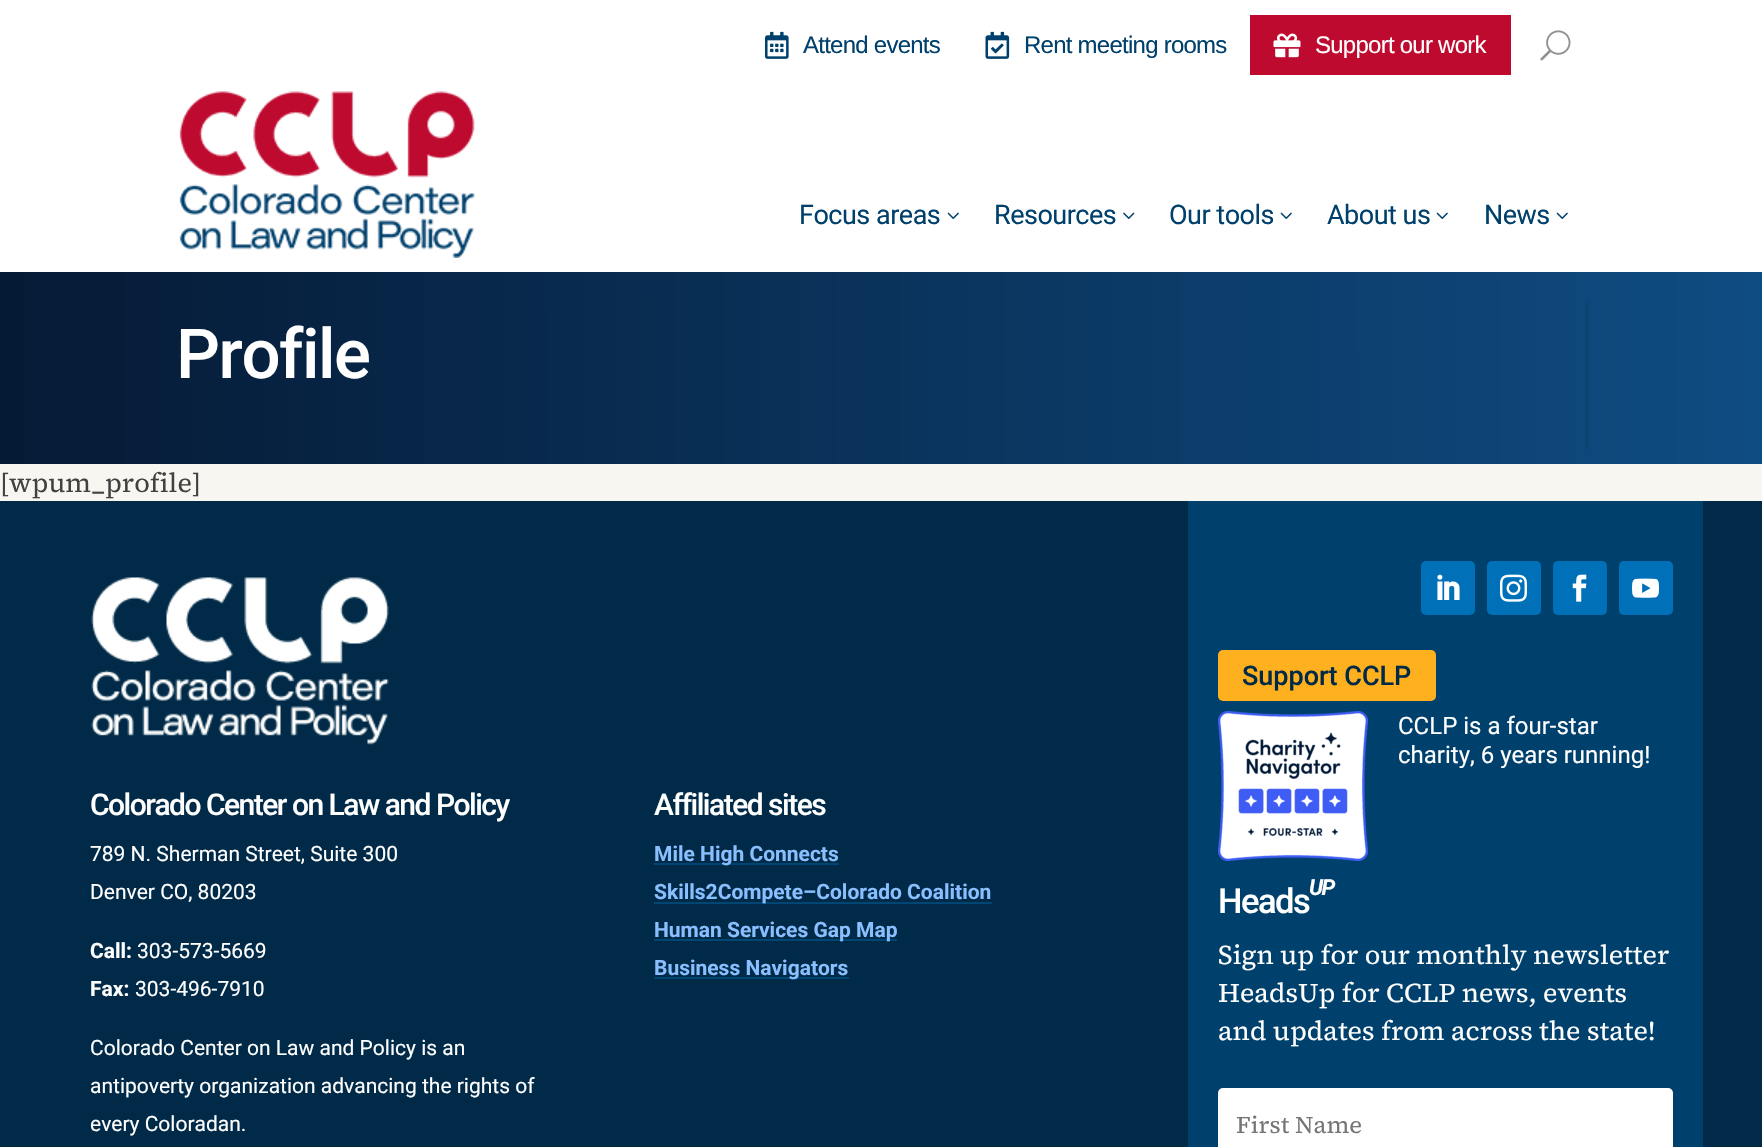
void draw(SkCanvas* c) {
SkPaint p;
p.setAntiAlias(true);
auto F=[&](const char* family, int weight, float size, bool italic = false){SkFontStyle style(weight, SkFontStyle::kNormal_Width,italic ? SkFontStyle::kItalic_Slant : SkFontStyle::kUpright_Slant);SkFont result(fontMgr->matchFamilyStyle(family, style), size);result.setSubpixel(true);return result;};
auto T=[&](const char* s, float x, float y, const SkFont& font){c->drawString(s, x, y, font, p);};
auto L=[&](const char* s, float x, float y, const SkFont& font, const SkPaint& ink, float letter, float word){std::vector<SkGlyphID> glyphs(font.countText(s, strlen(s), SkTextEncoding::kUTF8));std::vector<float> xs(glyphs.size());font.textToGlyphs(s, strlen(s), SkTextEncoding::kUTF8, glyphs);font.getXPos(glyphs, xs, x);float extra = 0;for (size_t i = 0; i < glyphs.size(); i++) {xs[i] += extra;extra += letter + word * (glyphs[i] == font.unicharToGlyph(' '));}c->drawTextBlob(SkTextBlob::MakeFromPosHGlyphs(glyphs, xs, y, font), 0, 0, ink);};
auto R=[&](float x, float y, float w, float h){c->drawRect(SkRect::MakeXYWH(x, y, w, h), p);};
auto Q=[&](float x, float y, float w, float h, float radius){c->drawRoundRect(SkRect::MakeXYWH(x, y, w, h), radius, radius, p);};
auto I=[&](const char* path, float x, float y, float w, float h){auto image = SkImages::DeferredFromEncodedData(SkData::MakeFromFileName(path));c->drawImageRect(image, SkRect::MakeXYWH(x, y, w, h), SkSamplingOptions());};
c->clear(0xffffffff);
I("1.png",765,31,24,28);
auto f1 = F("Liberation Sans",400,24);
p.setColor(0xff00406c);
L("Attend events",803,53,f1,p,-.75,0);
I("2.png",985,31,25,28);
L("Rent meeting rooms",1024,53,f1,p,-.75,0);
p.setColor(0xffbf0a30);
R(1250,15,261,60);
I("3.png",1273,33,28,25);
p.setColor(0xffffffff);
L("Support our work",1315,53,f1,p,-.75,0);
I("4.png",1540,30,31,31);
I("5.png",179,91,296,167);
auto f2 = F("Roboto",400,27);
p.setColor(0xff00406c);
L("Focus areas",799,224,f2,p,-.5,0);
I("6.png",947,212,12,7);
L("Resources",994,224,f2,p,-.5,0);
I("7.png",1123,212,12,7);
L("Our tools",1169,224,f2,p,-.5,0);
I("6.png",1280,212,12,7);
L("About us",1327,224,f2,p,-.5,0);
I("6.png",1436,212,12,7);
L("News",1484,224,f2,p,-.5,0);
I("6.png",1556,212,12,7);
{
const SkColor colors[] = {0xff051a35,0xff0f4c82};
const float stops[] = {0,1};
const SkPoint ends[] = {{0,368}, {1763,367}};
p.setShader(SkGradientShader::MakeLinear(ends, colors, stops, 2, SkTileMode::kClamp));
p.setAlpha(255);
}
R(0,272,1762,192);
p.setShader(nullptr);
p.setColor(0xff0d406e);
R(1586,302,2,147);
auto f3 = F("Roboto",500,69);
p.setColor(0xffffffff);
L("Profile",176,378,f3,p,-1.5,0);
p.setColor(0xfff7f6f1);
R(0,464,1762,37);
auto f4 = F("Source Serif 4",400,27);
p.setColor(0xff414141);
T("[wpum_profile]",0,492,f4);
p.setColor(0xff002a47);
R(0,501,1762,646);
I("8.png",91,577,298,168);
auto f5 = F("Roboto",500,30);
p.setColor(0xffffffff);
L("Colorado Center on Law and Policy",90,815,f5,p,-1.5,0);
auto f6 = F("Roboto",400,21);
T("789 N. Sherman Street, Suite 300",90,861,f6);
T("Denver CO, 80203",90,899,f6);
auto f7 = F("Roboto",700,21);
T("Call:",90,958,f7);
T("303-573-5669",137,958,f6);
T("Fax:",90,996,f7);
T("303-496-7910",135,996,f6);
T("Colorado Center on Law and Policy is an",90,1055,f6);
T("antipoverty organization advancing the rights of",90,1093,f6);
T("every Coloradan.",90,1131,f6);
L("Affiliated sites",654,815,f5,p,-1.5,0);
p.setColor(0xff004674);
R(654,863,185,2);
p.setColor(0xff89beff);
T("Mile High Connects",654,861,f7);
p.setColor(0xff004674);
R(654,902,338,2);
p.setColor(0xff89beff);
T("Skills2Compete–Colorado Coalition",654,899,f7);
p.setColor(0xff004674);
R(654,939,243,2);
p.setColor(0xff89beff);
T("Human Services Gap Map",654,937,f7);
p.setColor(0xff004674);
R(654,977,195,2);
p.setColor(0xff89beff);
T("Business Navigators",654,975,f7);
p.setColor(0xff00406c);
R(1188,501,515,646);
p.setColor(0xff0071b8);
Q(1421,561,54,54,5);
I("9.png",1437,574,23,26);
Q(1487,561,54,54,5);
I("10.png",1500,574,27,28);
Q(1553,561,54,54,5);
I("11.png",1572,574,15,28);
Q(1619,561,54,54,5);
I("12.png",1632,578,27,20);
p.setColor(0xffffb01f);
Q(1218,650,218,51,5);
auto f8 = F("Roboto",500,27);
p.setColor(0xff002a47);
T("Support CCLP",1242,685,f8);
I("13.png",1218,711,150,150);
auto f9 = F("Roboto",400,24);
p.setColor(0xffffffff);
T("CCLP is a four-star",1398,734,f9);
T("charity, 6 years running!",1398,763,f9);
auto f10 = F("Roboto",500,34.5);
L("Heads",1218,913,f10,p,-1.5,0);
auto f11 = F("Roboto",700,22,true);
L("UP",1309,895,f11,p,-1.5,0);
T("Sign up for our monthly newsletter",1218,964,f4);
T("HeadsUp for CCLP news, events",1218,1002,f4);
T("and updates from across the state!",1218,1040,f4);
Q(1218,1088,455,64,5);
auto f12 = F("Source Serif 4",400,24);
p.setColor(0xff757575);
T("First Name",1236,1133,f12);
}
